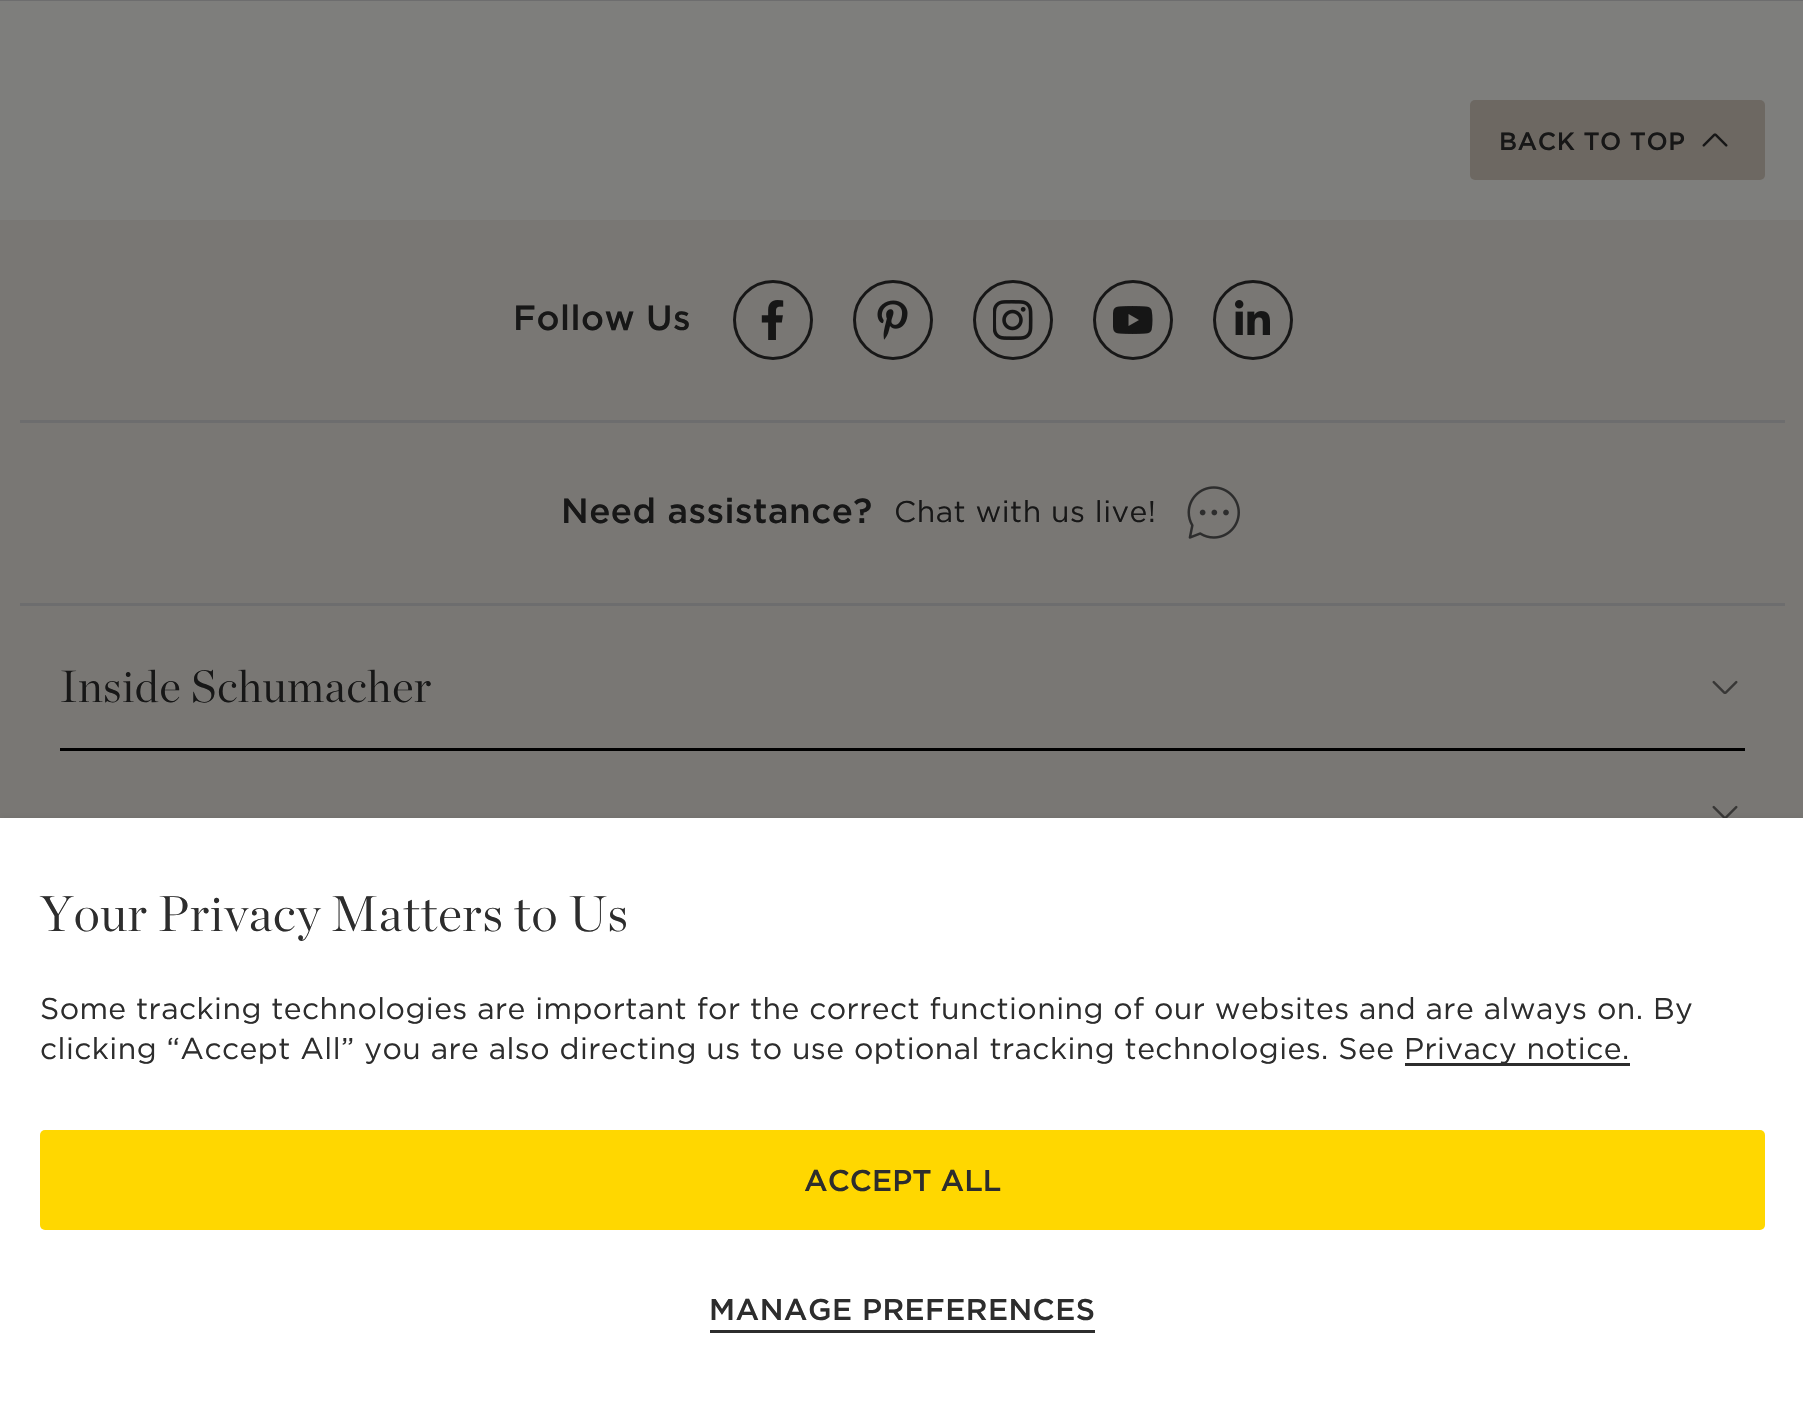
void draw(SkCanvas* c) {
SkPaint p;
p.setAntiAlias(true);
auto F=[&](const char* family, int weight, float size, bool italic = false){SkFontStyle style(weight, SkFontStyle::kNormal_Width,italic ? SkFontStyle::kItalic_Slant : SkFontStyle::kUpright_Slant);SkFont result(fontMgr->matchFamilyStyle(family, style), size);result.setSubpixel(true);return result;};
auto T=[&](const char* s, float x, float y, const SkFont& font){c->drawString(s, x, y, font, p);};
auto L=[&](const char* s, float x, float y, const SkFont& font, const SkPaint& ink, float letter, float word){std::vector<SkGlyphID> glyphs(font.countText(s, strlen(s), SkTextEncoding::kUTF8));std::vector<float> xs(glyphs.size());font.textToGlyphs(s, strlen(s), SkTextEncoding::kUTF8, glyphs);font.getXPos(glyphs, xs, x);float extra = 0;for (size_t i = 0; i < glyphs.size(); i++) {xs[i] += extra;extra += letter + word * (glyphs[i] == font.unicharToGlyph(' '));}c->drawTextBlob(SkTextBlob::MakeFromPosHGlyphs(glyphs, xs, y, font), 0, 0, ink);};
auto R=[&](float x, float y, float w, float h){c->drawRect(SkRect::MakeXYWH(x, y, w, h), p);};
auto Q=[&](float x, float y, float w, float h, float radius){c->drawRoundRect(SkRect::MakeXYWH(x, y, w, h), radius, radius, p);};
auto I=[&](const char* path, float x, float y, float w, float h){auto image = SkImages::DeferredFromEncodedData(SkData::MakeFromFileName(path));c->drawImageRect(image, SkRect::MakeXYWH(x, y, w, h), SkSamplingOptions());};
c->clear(0xff7e7e7c);
p.setColor(0xff6d6d6e);
R(0,0,1803,1);
p.setColor(0xff6d6862);
Q(1470,100,295,80,5);
auto f1 = F("Gotham",500,25);
p.setColor(0xff171717);
L("BACK TO TOP",1499,150,f1,p,.5,0);
I("1.png",1702,133,26,14);
p.setColor(0xff797774);
R(0,220,1803,598);
auto f2 = F("Gotham",500,35);
p.setColor(0xff171717);
L("Follow Us",513,330,f2,p,.5,0);
p.setStroke(true);
p.setStrokeWidth(3);
c->drawCircle(773,320,38.5,p);
I("2.png",761,300,23,40);
c->drawCircle(893,320,38.5,p);
I("3.png",877,300,31,40);
c->drawCircle(1013,320,38.5,p);
I("4.png",993,300,40,40);
c->drawCircle(1133,320,38.5,p);
I("5.png",1113,306,40,28);
c->drawCircle(1253,320,38.5,p);
I("6.png",1235,300,35,35);
p.setStroke(false);
p.setColor(0xff6d6d6e);
R(20,420,1765,3);
p.setColor(0xff171717);
L("Need assistance?",561,523,f2,p,.5,0);
auto f3 = F("Gotham",400,30);
L("Chat with us live!",894,522,f3,p,.45,0);
I("7.png",1187,486,53,53);
p.setColor(0xff6d6d6e);
R(20,603,1765,3);
p.setColor(0xff000000);
R(60,748,1685,3);
auto f4 = F("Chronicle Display",300,45);
p.setColor(0xff171717);
L("Inside Schumacher",60,702,f4,p,.7,0);
I("8.png",1712,680,26,14);
I("9.png",1712,805,26,13);
p.setColor(0x1f000000);
p.setMaskFilter(SkMaskFilter::MakeBlur(kNormal_SkBlurStyle, 4));
c->drawRect(SkRect::MakeXYWH(0,820,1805,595),p);
p.setMaskFilter(nullptr);
p.setColor(0xffffffff);
R(0,818,1803,593);
auto f5 = F("Chronicle Display",300,50);
p.setColor(0xff2d2d2d);
L("Your Privacy Matters to Us",40,931,f5,p,.75,0);
L("Some tracking technologies are important for the correct functioning of our websites and are always on. By",40,1019,f3,p,.45,0);
L("clicking “Accept All” you are also directing us to use optional tracking technologies. See",40,1059,f3,p,.45,0);
R(1405,1063,225,3);
L("Privacy notice.",1404,1059,f3,p,.45,0);
p.setColor(0xffffd700);
Q(40,1130,1725,100,5);
auto f6 = F("Gotham",500,30);
p.setColor(0xff2d2d2d);
T("ACCEPT ALL",804,1191,f6);
R(710,1330,385,3);
L("MANAGE PREFERENCES",709,1320,f6,p,.45,0);
}
